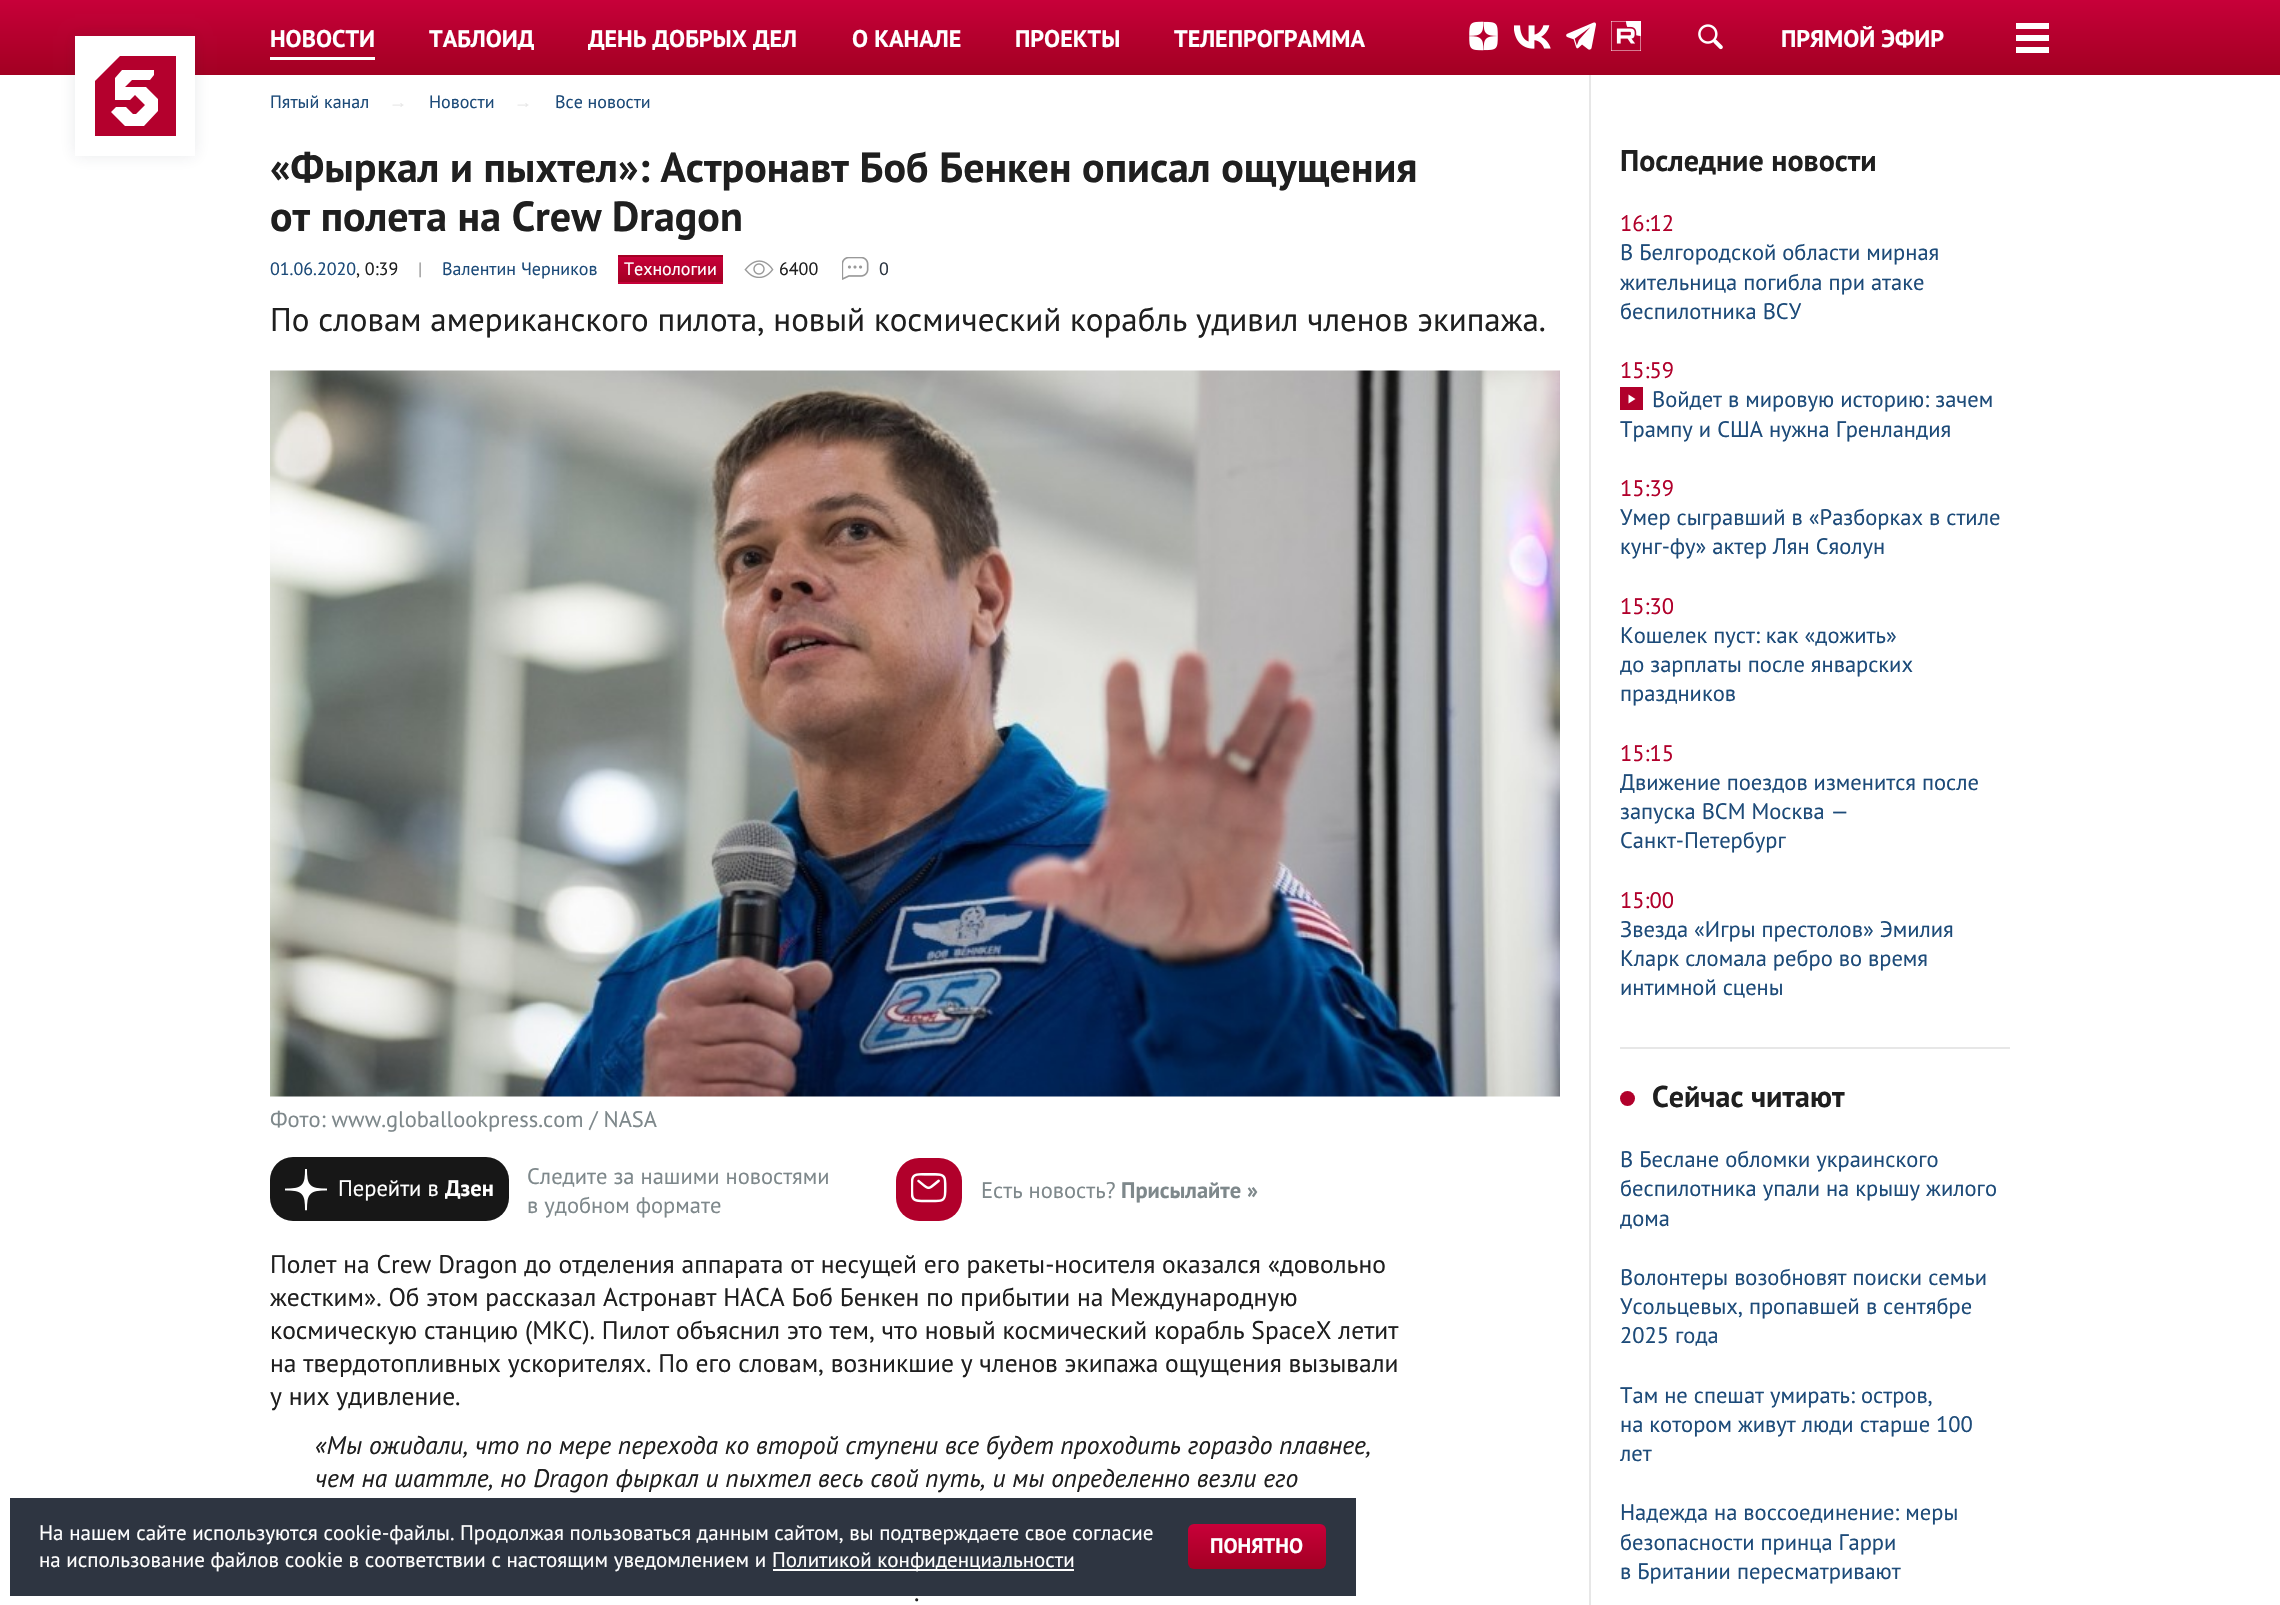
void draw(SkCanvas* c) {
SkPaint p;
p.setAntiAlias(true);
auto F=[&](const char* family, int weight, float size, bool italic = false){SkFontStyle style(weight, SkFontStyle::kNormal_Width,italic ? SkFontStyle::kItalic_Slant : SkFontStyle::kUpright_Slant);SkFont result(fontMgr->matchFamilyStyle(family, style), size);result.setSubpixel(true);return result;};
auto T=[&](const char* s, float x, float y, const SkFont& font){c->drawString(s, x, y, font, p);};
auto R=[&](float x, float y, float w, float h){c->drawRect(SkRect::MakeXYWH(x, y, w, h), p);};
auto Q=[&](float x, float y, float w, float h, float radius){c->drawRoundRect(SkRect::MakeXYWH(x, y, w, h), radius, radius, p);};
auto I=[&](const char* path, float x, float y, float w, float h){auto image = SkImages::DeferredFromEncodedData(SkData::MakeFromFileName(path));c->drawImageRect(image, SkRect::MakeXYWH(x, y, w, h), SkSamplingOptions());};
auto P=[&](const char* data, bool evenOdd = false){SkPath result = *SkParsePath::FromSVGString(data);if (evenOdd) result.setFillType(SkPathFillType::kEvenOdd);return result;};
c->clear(0xffffffff);
{
const SkColor colors[] = {0xffc70039,0xffa20022};
const float stops[] = {0,1};
const SkPoint ends[] = {{1140,0}, {1140,75}};
p.setShader(SkGradientShader::MakeLinear(ends, colors, stops, 2, SkTileMode::kClamp));
p.setAlpha(255);
}
R(0,0,2280,75);
p.setShader(nullptr);
p.setColor(0x1a2b3541);
p.setMaskFilter(SkMaskFilter::MakeBlur(kNormal_SkBlurStyle, 7.5));
c->drawRect(SkRect::MakeXYWH(75,36,120,120),p);
p.setMaskFilter(nullptr);
p.setColor(0xffffffff);
R(75,36,120,120);
p.setColor(0xffb4002d);
c->drawPath(P("M95 81v55h81v-80h-56z"),p);
p.setColor(0xffffffff);
c->drawPath(P("M146 87h-21l7-7h18l4-5v-5h-32l-7 8v22h15l5-5l10 10l-9 9h-3l-7-7h-10l-5 5l14 14h19l14-15v-12l-12-12"),p);
auto f1 = F("PT Sans",700,24);
T("НОВОСТИ",270,47,f1);
R(270,57,105,3);
T("ТАБЛОИД",429,47,f1);
T("ДЕНЬ ДОБРЫХ ДЕЛ",588,47,f1);
T("О КАНАЛЕ",852,47,f1);
T("ПРОЕКТЫ",1015,47,f1);
T("ТЕЛЕПРОГРАММА",1174,47,f1);
I("1.png",1469,21,29,30);
I("2.png",1514,25,37,24);
I("3.png",1566,22,30,28);
I("4.png",1611,21,30,30);
I("5.png",1698,24,25,26);
T("ПРЯМОЙ ЭФИР",1781,47,f1);
R(2016,23,33,6);
R(2016,35,33,6);
R(2016,47,33,6);
auto f2 = F("PT Sans",400,18);
p.setColor(0xff1d4b79);
T("Пятый канал",270,108,f2);
auto f3 = F("Liberation Sans",400,18);
p.setColor(0xffe7e7e7);
T("→",389,108,f3);
p.setColor(0xff1d4b79);
T("Новости",429,108,f2);
p.setColor(0xffe7e7e7);
T("→",514,108,f3);
p.setColor(0xff1d4b79);
T("Все новости",555,108,f2);
auto f4 = F("PT Sans",700,42);
p.setColor(0xff1f1f1f);
T("«Фыркал и пыхтел»: Астронавт Боб Бенкен описал ощущения",270,182,f4);
T("от полета на Crew Dragon",270,231,f4);
p.setColor(0xff1d4b79);
T("01.06.2020",270,275,f2);
p.setColor(0xff1f1f1f);
T(", 0:39",356,275,f2);
p.setColor(0xff989898);
T("|",418,275,f2);
p.setColor(0xff1d4b79);
T("Валентин Черников",442,275,f2);
{
const SkColor colors[] = {0xffc80039,0xffa30023};
const float stops[] = {0,1};
const SkPoint ends[] = {{671,231}, {671,257}};
p.setShader(SkGradientShader::MakeLinear(ends, colors, stops, 2, SkTileMode::kClamp));
p.setAlpha(255);
}
R(618,255,105,2);
{
const SkColor colors[] = {0xffc80039,0xffa30023};
const float stops[] = {0,1};
const SkPoint ends[] = {{671,257}, {671,282}};
p.setShader(SkGradientShader::MakeLinear(ends, colors, stops, 2, SkTileMode::kClamp));
p.setAlpha(255);
}
R(618,257,105,25);
{
const SkColor colors[] = {0xffc80039,0xffa30023};
const float stops[] = {0,1};
const SkPoint ends[] = {{671,282}, {671,308}};
p.setShader(SkGradientShader::MakeLinear(ends, colors, stops, 2, SkTileMode::kClamp));
p.setAlpha(255);
}
R(618,282,105,2);
p.setShader(nullptr);
p.setColor(0xffffffff);
T("Технологии",624,275,f2);
I("6.png",744,260,30,18);
p.setColor(0xff1f1f1f);
T("6 400",779,275,f2);
I("7.png",842,257,27,23);
p.setColor(0xff2b3541);
T("0",879,275,f2);
auto f5 = F("PT Sans",400,33);
p.setColor(0xff1f1f1f);
T("По словам американского пилота, новый космический корабль удивил членов экипажа.",270,331,f5);
I("8.png",270,370,1290,727);
auto f6 = F("PT Sans",400,22.5);
p.setColor(0xff7e888b);
T("Фото: www.globallookpress.com / NASA",270,1127,f6);
p.setColor(0xff171717);
Q(270,1157,239,64,23);
I("9.png",285,1169,42,42);
p.setColor(0xffffffff);
T("Перейти в",338,1196,f6);
auto f7 = F("PT Sans",700,22.5);
T("Дзен",445,1196,f7);
p.setColor(0xff7e888b);
T("Следите за нашими новостями",527,1184,f6);
T("в удобном формате",527,1213,f6);
p.setColor(0xffb1002b);
Q(896,1158,66,63,23);
I("10.png",911,1173,36,30);
p.setColor(0xff7e888b);
T("Есть новость?",981,1198,f6);
T("Присылайте »",1121,1198,f7);
auto f8 = F("PT Sans",400,25.5);
p.setColor(0xff1f1f1f);
T("Полет на Crew Dragon до отделения аппарата от несущей его ракеты-носителя оказался «довольно",270,1273,f8);
T("жестким». Об этом рассказал Астронавт НАСА Боб Бенкен по прибытии на Международную",270,1306,f8);
T("космическую станцию (МКС). Пилот объяснил это тем, что новый космический корабль SpaceX летит",270,1339,f8);
T("на твердотопливных ускорителях. По его словам, возникшие у членов экипажа ощущения вызывали",270,1372,f8);
T("у них удивление.",270,1405,f8);
auto f9 = F("PT Sans",400,25.5,true);
T("«Мы ожидали, что по мере перехода ко второй ступени все будет проходить гораздо плавнее,",315,1454,f9);
T("чем на шаттле, но Dragon фыркал и пыхтел весь свой путь, и мы определенно везли его",315,1487,f9);
T(".",914,1601,f8);
p.setColor(0xffe7e7e7);
R(1589,75,2,1530);
auto f10 = F("PT Sans",700,30);
p.setColor(0xff1f1f1f);
T("Последние новости",1620,171,f10);
p.setColor(0xffb1002b);
T("16:12",1620,231,f6);
p.setColor(0xff1d4b79);
T("В Белгородской области мирная",1620,260,f6);
T("жительница погибла при атаке",1620,290,f6);
T("беспилотника ВСУ",1620,319,f6);
p.setColor(0xffb1002b);
T("15:59",1620,378,f6);
R(1620,387,23,23);
p.setColor(0xffffffff);
c->drawPath(P("M1628.5 394.5v9l7-4.5z"),p);
p.setColor(0xff1d4b79);
T("Войдет в мировую историю: зачем",1652,407,f6);
T("Трампу и США нужна Гренландия",1620,437,f6);
p.setColor(0xffb1002b);
T("15:39",1620,496,f6);
p.setColor(0xff1d4b79);
T("Умер сыгравший в «Разборках в стиле",1620,525,f6);
T("кунг-фу» актер Лян Сяолун",1620,554,f6);
p.setColor(0xffb1002b);
T("15:30",1620,614,f6);
p.setColor(0xff1d4b79);
T("Кошелек пуст: как «дожить»",1620,643,f6);
T("до зарплаты после январских",1620,672,f6);
T("праздников",1620,701,f6);
p.setColor(0xffb1002b);
T("15:15",1620,761,f6);
p.setColor(0xff1d4b79);
T("Движение поездов изменится после",1620,790,f6);
T("запуска ВСМ Москва —",1620,819,f6);
T("Санкт-Петербург",1620,848,f6);
p.setColor(0xffb1002b);
T("15:00",1620,908,f6);
p.setColor(0xff1d4b79);
T("Звезда «Игры престолов» Эмилия",1620,937,f6);
T("Кларк сломала ребро во время",1620,966,f6);
T("интимной сцены",1620,995,f6);
p.setColor(0xffe7e7e7);
R(1620,1047,390,2);
p.setColor(0xffb1002b);
c->drawCircle(1627.5,1098.5,7.5,p);
p.setColor(0xff1f1f1f);
T("Сейчас читают",1652,1107,f10);
p.setColor(0xff1d4b79);
T("В Беслане обломки украинского",1620,1167,f6);
T("беспилотника упали на крышу жилого",1620,1196,f6);
T("дома",1620,1226,f6);
T("Волонтеры возобновят поиски семьи",1620,1285,f6);
T("Усольцевых, пропавшей в сентябре",1620,1314,f6);
T("2025 года",1620,1343,f6);
T("Там не спешат умирать: остров,",1620,1403,f6);
T("на котором живут люди старше 100",1620,1432,f6);
T("лет",1620,1461,f6);
T("Надежда на воссоединение: меры",1620,1520,f6);
T("безопасности принца Гарри",1620,1550,f6);
T("в Британии пересматривают",1620,1579,f6);
p.setColor(0xff2e3541);
R(10,1498,1346,98);
auto f11 = F("PT Sans",400,21);
p.setColor(0xffffffff);
T("На нашем сайте используются cookie-файлы. Продолжая пользоваться данным сайтом, вы подтверждаете свое согласие",39,1540,f11);
T("на использование файлов cookie в соответствии с настоящим уведомлением и",39,1567,f11);
R(773,1569,301,2);
T("Политикой конфиденциальности",772,1567,f11);
{
const SkColor colors[] = {0xffc80039,0xffa30023};
const float stops[] = {0,1};
const SkPoint ends[] = {{1257,1524}, {1257,1569}};
p.setShader(SkGradientShader::MakeLinear(ends, colors, stops, 2, SkTileMode::kClamp));
p.setAlpha(255);
}
Q(1188,1524,138,45,6);
auto f12 = F("PT Sans",700,21);
p.setShader(nullptr);
p.setColor(0xffffffff);
T("ПОНЯТНО",1210,1553,f12);
}
